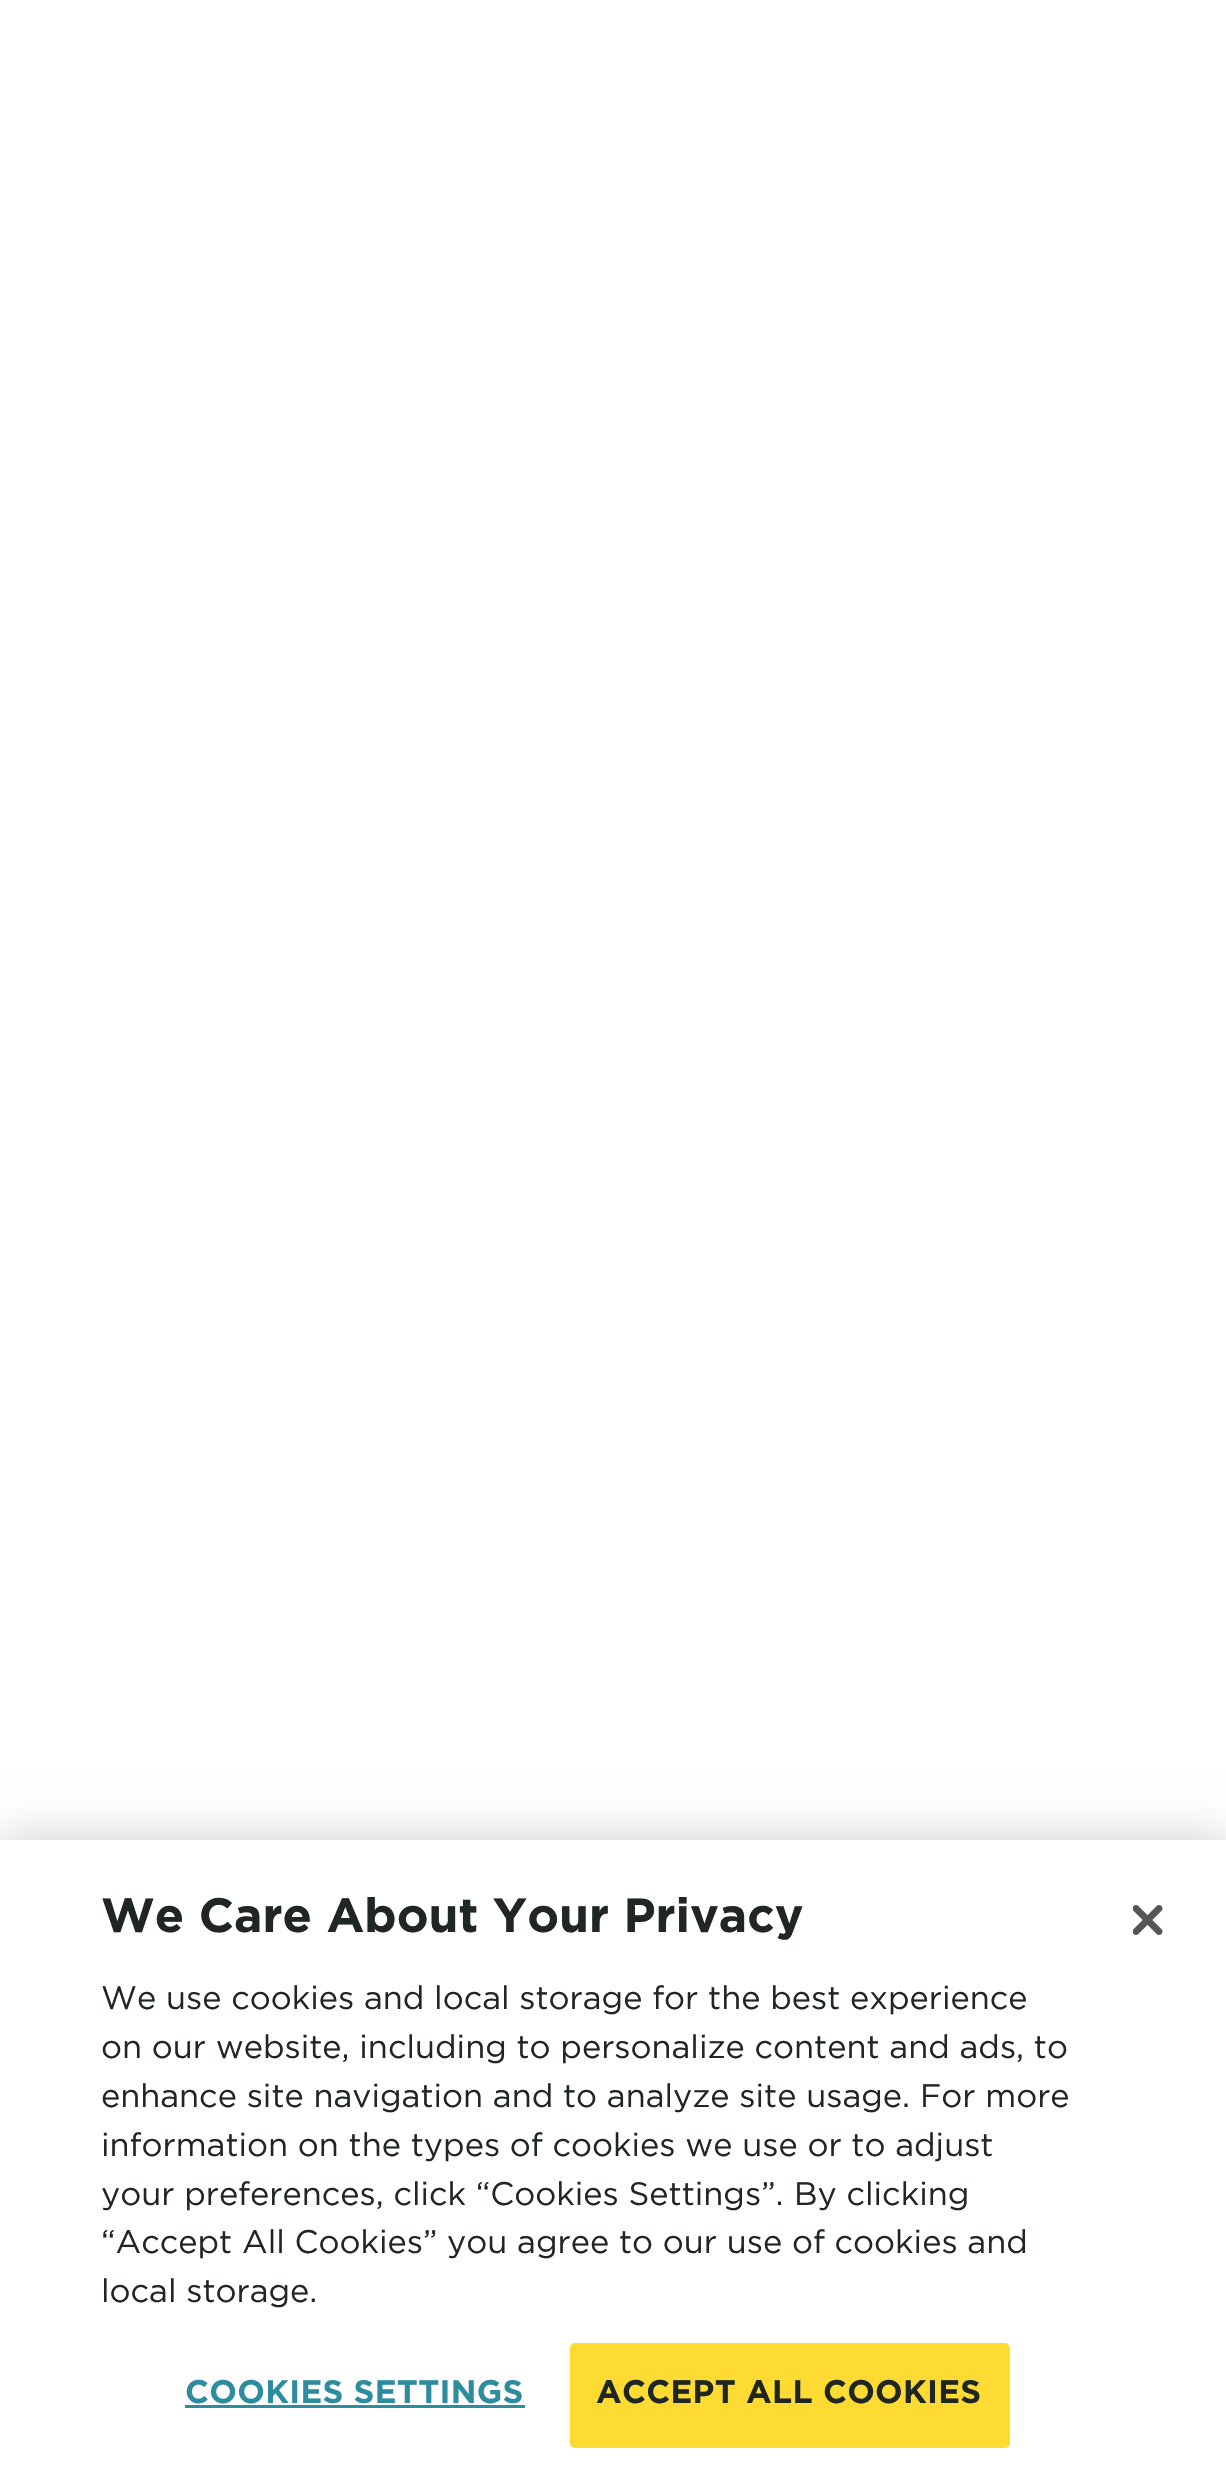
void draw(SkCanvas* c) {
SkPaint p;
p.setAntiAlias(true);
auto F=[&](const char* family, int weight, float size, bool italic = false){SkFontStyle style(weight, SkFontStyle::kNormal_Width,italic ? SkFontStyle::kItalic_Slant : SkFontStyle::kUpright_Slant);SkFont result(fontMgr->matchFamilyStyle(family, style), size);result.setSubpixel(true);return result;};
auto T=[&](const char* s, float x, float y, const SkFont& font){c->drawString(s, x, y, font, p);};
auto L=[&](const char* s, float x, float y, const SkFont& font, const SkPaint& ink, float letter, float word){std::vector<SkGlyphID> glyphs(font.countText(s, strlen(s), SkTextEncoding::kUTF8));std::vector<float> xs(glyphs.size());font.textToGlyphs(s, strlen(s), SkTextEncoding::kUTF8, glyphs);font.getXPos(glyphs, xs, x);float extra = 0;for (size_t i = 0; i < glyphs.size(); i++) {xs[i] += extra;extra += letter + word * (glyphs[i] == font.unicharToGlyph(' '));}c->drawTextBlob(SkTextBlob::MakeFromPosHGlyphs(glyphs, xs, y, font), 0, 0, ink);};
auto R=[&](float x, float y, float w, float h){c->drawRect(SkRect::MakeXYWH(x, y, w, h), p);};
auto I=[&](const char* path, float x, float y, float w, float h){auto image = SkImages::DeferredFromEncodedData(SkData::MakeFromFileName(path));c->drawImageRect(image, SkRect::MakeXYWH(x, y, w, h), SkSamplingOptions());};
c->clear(0xffffffff);
p.setColor(0x33000000);
p.setMaskFilter(SkMaskFilter::MakeBlur(kNormal_SkBlurStyle, 22.5));
c->drawRect(SkRect::MakeXYWH(0,1840,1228,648),p);
p.setMaskFilter(nullptr);
p.setColor(0xffffffff);
R(0,1840,1226,647);
auto f1 = F("Gotham",700,48);
p.setColor(0xff202621);
T("We Care About Your Privacy",101,1932,f1);
auto f2 = F("Gotham",400,32.5);
T("We use cookies and local storage for the best experience",101,2009,f2);
T("on our website, including to personalize content and ads, to",101,2058,f2);
T("enhance site navigation and to analyze site usage.",101,2107,f2);
T("For more",920,2107,f2);
T("information on the types of cookies we use or to adjust",101,2156,f2);
T("your preferences, click “Cookies Settings”.",101,2205,f2);
T("By clicking",794,2205,f2);
T("“Accept All Cookies” you agree to our use of cookies and",101,2253,f2);
T("local storage.",101,2302,f2);
auto f3 = F("Gotham",700,32.5);
p.setColor(0xff2d8c9e);
L("COOKIES SETTINGS",185,2403,f3,p,.3,0);
R(185,2405,340,3);
p.setColor(0xfffddb32);
c->drawRoundRect(SkRect::MakeXYWH(571.5,2344.5,437,102),3.5,3.5,p);
p.setStroke(true);
p.setStrokeWidth(3);
c->drawRoundRect(SkRect::MakeXYWH(571.5,2344.5,437,102),3.5,3.5,p);
p.setStroke(false);
p.setColor(0xff202621);
L("ACCEPT ALL COOKIES",596,2403,f3,p,.3,0);
I("1.png",1133,1905,30,30);
}
